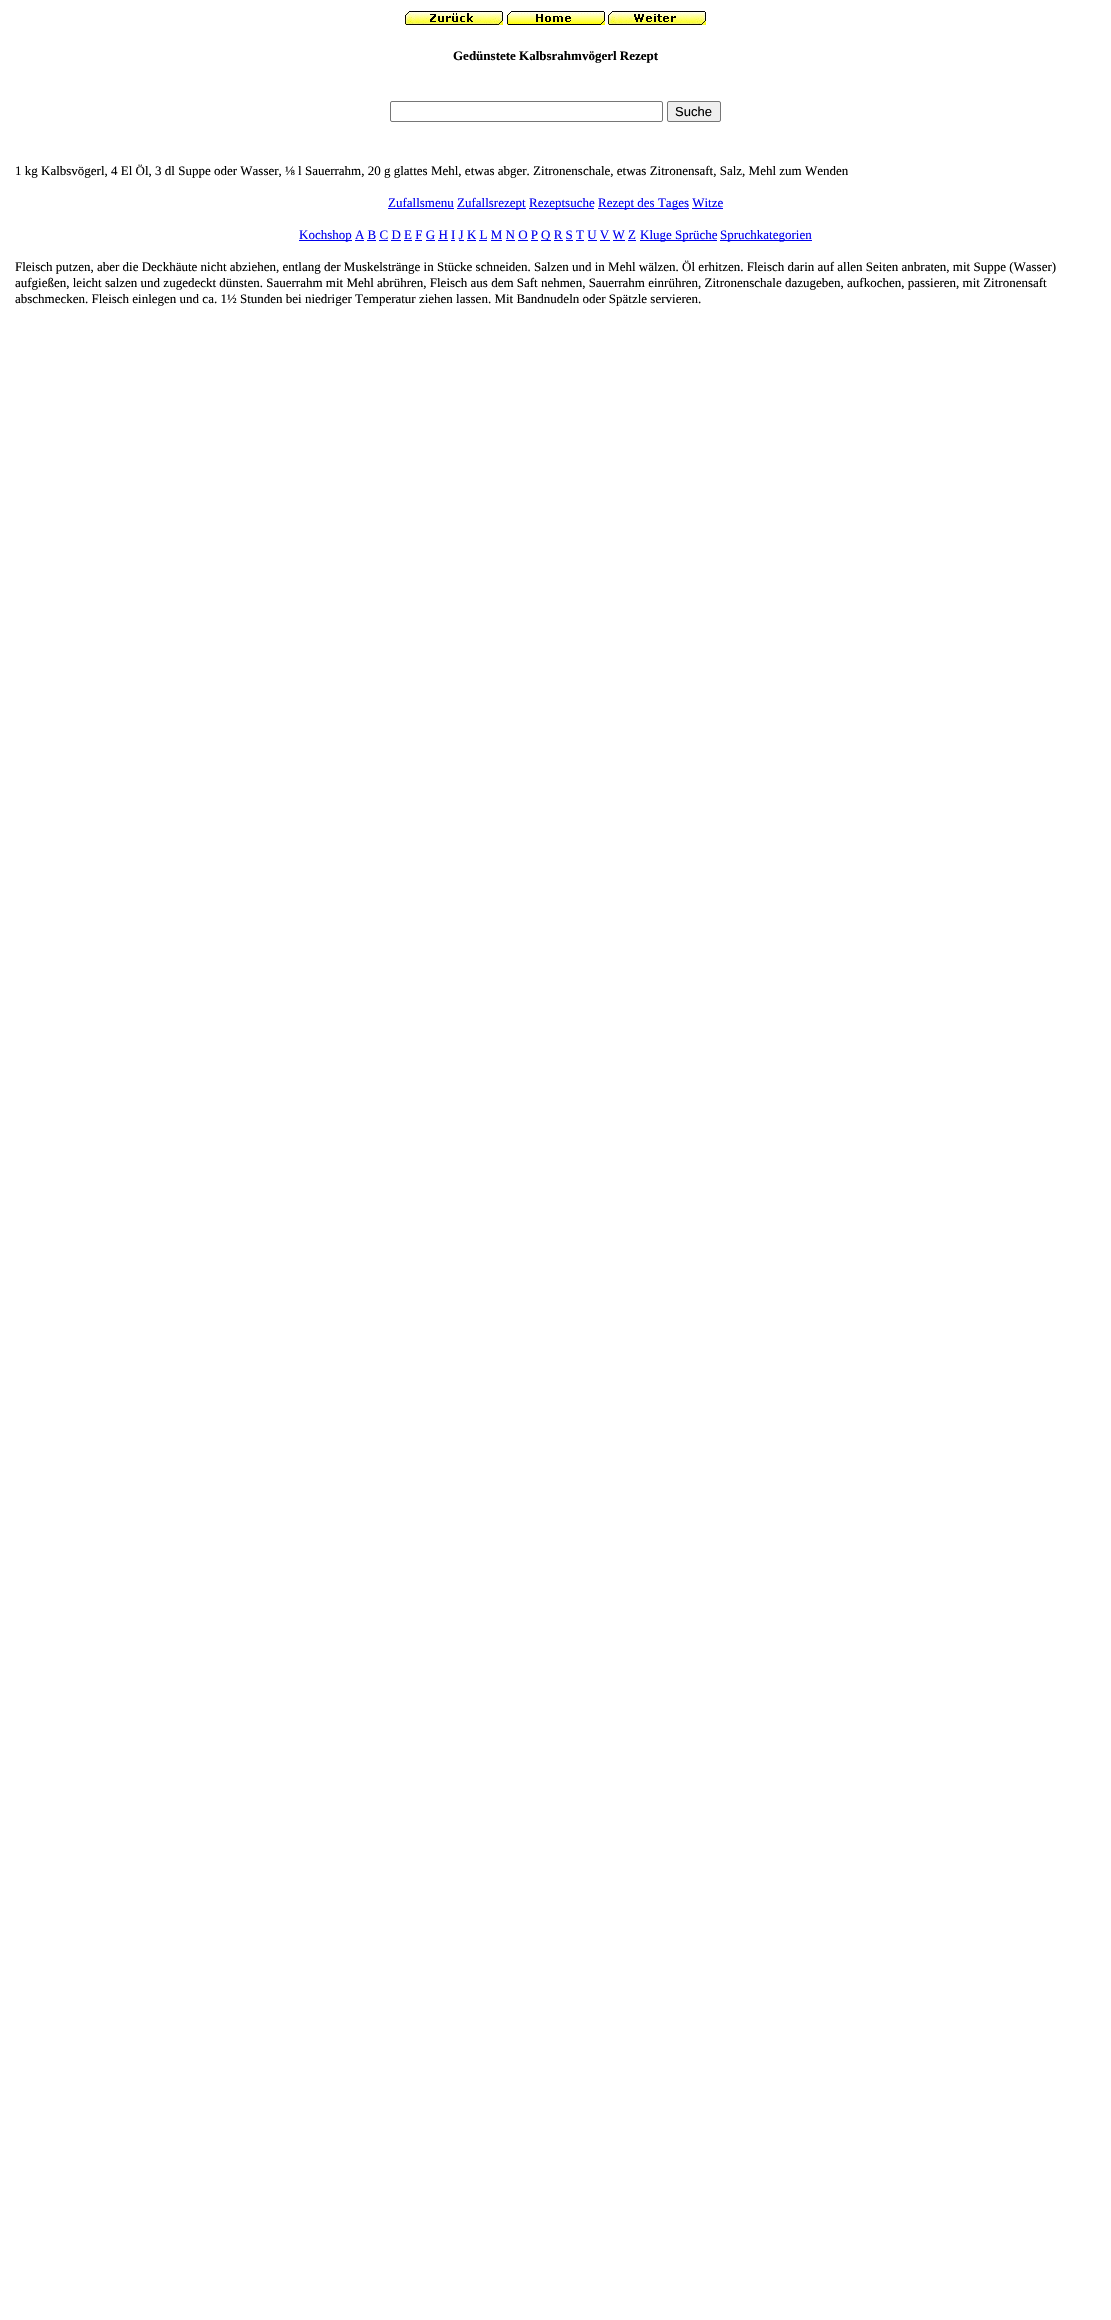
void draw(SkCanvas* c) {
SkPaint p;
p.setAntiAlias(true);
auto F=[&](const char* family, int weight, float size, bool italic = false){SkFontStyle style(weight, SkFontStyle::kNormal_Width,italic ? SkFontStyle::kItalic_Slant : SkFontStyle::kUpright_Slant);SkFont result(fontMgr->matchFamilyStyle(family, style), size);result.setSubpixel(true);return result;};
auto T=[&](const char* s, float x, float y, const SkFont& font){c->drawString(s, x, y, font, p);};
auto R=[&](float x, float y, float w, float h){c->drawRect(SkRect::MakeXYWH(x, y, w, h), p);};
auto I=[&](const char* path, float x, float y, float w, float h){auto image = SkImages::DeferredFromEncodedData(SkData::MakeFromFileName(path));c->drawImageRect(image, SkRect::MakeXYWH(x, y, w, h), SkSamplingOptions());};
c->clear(0xffffffff);
I("1.png",405,11,98,14);
I("2.png",507,11,98,14);
I("3.png",608,11,98,14);
auto f1 = F("Liberation Serif",700,13);
p.setColor(0xff000000);
T("Gedünstete Kalbsrahmvögerl Rezept",453,60,f1);
p.setStroke(true);
p.setStrokeWidth(1);
p.setColor(0xff767676);
c->drawRoundRect(SkRect::MakeXYWH(390.5,101.5,272,20),1.5,1.5,p);
p.setStroke(false);
p.setColor(0xffefefef);
c->drawRoundRect(SkRect::MakeXYWH(667.5,101.5,53,20),1.5,1.5,p);
p.setStroke(true);
p.setColor(0xff767676);
c->drawRoundRect(SkRect::MakeXYWH(667.5,101.5,53,20),1.5,1.5,p);
auto f2 = F("Liberation Sans",400,13);
p.setStroke(false);
p.setColor(0xff000000);
T("Suche",675,116,f2);
auto f3 = F("Liberation Serif",400,13);
T("1 kg Kalbsvögerl, 4 El Öl, 3 dl Suppe oder Wasser, ⅛ l Sauerrahm, 20 g glattes Mehl, etwas abger. Zitronenschale, etwas Zitronensaft, Salz, Mehl zum Wenden",15,175,f3);
p.setColor(0xff0000ee);
T("Zufallsmenu",388,207,f3);
R(388,208,66,1);
R(457,208,69,1);
T("Zufallsrezept",457,207,f3);
R(529,208,65,1);
T("Rezeptsuche",529,207,f3);
R(598,208,91,1);
T("Rezept des Tages Witze",598,207,f3);
R(692,208,31,1);
R(299,240,53,1);
T("Kochshop A B C D E F G H I J K L M N O P",299,239,f3);
R(355,240,9,1);
R(367,240,9,1);
R(379,240,9,1);
R(391,240,10,1);
R(404,240,8,1);
R(415,240,7,1);
R(426,240,9,1);
R(438,240,10,1);
R(451,240,4,1);
R(459,240,5,1);
R(467,240,9,1);
R(479,240,8,1);
R(491,240,11,1);
R(506,240,9,1);
R(518,240,10,1);
R(531,240,7,1);
R(541,240,10,1);
T("Q R S T U V W Z",541,239,f3);
R(554,240,9,1);
R(566,240,7,1);
R(576,240,8,1);
R(588,240,9,1);
R(600,240,10,1);
R(613,240,12,1);
R(628,240,8,1);
R(640,240,77,1);
T("Kluge Sprüche",640,239,f3);
R(720,240,92,1);
T("Spruchkategorien",720,239,f3);
p.setColor(0xff000000);
T("Fleisch putzen, aber die Deckhäute nicht abziehen, entlang der Muskelstränge in Stücke schneiden. Salzen und in Mehl wälzen. Öl erhitzen. Fleisch darin auf allen Seiten anbraten, mit Suppe (Wasser)",15,271,f3);
T("aufgießen, leicht salzen und zugedeckt dünsten. Sauerrahm mit Mehl abrühren, Fleisch aus dem Saft nehmen, Sauerrahm einrühren, Zitronenschale dazugeben, aufkochen, passieren, mit Zitronensaft",15,287,f3);
T("abschmecken. Fleisch einlegen und ca. 1½ Stunden bei niedriger Temperatur ziehen lassen. Mit Bandnudeln oder Spätzle servieren.",15,303,f3);
}
